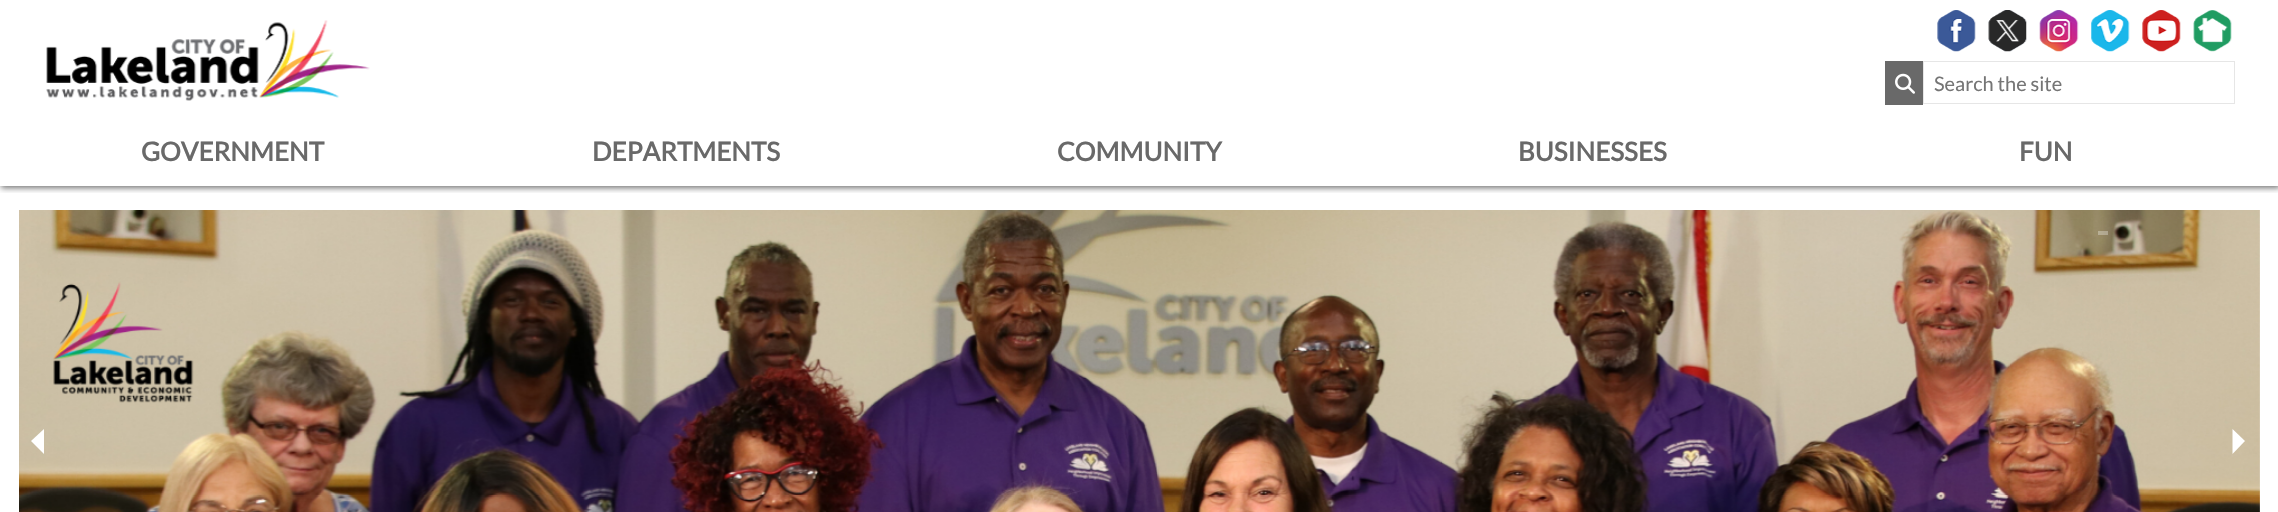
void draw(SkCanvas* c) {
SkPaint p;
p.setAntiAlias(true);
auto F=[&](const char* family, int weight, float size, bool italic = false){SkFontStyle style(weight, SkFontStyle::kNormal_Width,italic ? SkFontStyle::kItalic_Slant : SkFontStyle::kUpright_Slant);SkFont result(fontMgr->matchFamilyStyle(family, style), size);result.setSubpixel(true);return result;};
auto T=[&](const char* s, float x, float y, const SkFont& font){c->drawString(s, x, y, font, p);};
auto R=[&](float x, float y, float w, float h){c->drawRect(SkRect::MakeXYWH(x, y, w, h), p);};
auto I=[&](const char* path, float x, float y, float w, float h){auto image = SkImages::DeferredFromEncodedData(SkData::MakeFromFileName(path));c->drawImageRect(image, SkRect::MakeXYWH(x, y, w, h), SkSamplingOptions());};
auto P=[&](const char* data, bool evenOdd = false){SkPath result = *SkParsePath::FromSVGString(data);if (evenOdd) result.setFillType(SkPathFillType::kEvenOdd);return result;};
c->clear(0xffffffff);
c->save();
c->clipRect(SkRect::MakeXYWH(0,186,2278,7));
p.setColor(0x8c000000);
p.setMaskFilter(SkMaskFilter::MakeBlur(kNormal_SkBlurStyle, 3));
c->drawRect(SkRect::MakeXYWH(1,1,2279,187),p);
p.setMaskFilter(nullptr);
c->restore();
I("1.png",46,20,324,81);
I("2.png",1937,10,39,42);
I("3.png",1988,10,39,42);
I("4.png",2039,10,40,42);
I("5.png",2091,10,39,42);
I("6.png",2142,10,39,42);
I("7.png",2193,10,39,42);
p.setColor(0xff696969);
R(1885,61,38,44);
I("8.png",1895,73,20,21);
p.setStroke(true);
p.setStrokeWidth(1);
p.setColor(0xffe6e6e6);
c->drawRect(SkRect::MakeXYWH(1923.5,61.5,311,42),p);
auto f1 = F("Lato",400,20);
p.setStroke(false);
p.setColor(0xff757575);
T("Search the site",1934,91,f1);
auto f2 = F("Lato",700,26);
p.setColor(0xff696969);
T("GOVERNMENT",141,161,f2);
T("DEPARTMENTS",592,161,f2);
T("COMMUNITY",1057,161,f2);
T("BUSINESSES",1518,161,f2);
T("FUN",2019,161,f2);
I("9.png",19,210,2241,302);
p.setColor(0x4dffffff);
R(2098,231,10,4);
p.setColor(0xffffffff);
c->drawPath(P("M44 429v25l-13-13z"),p);
c->drawPath(P("M2232.5 454v-25l12.5 12z"),p);
}
